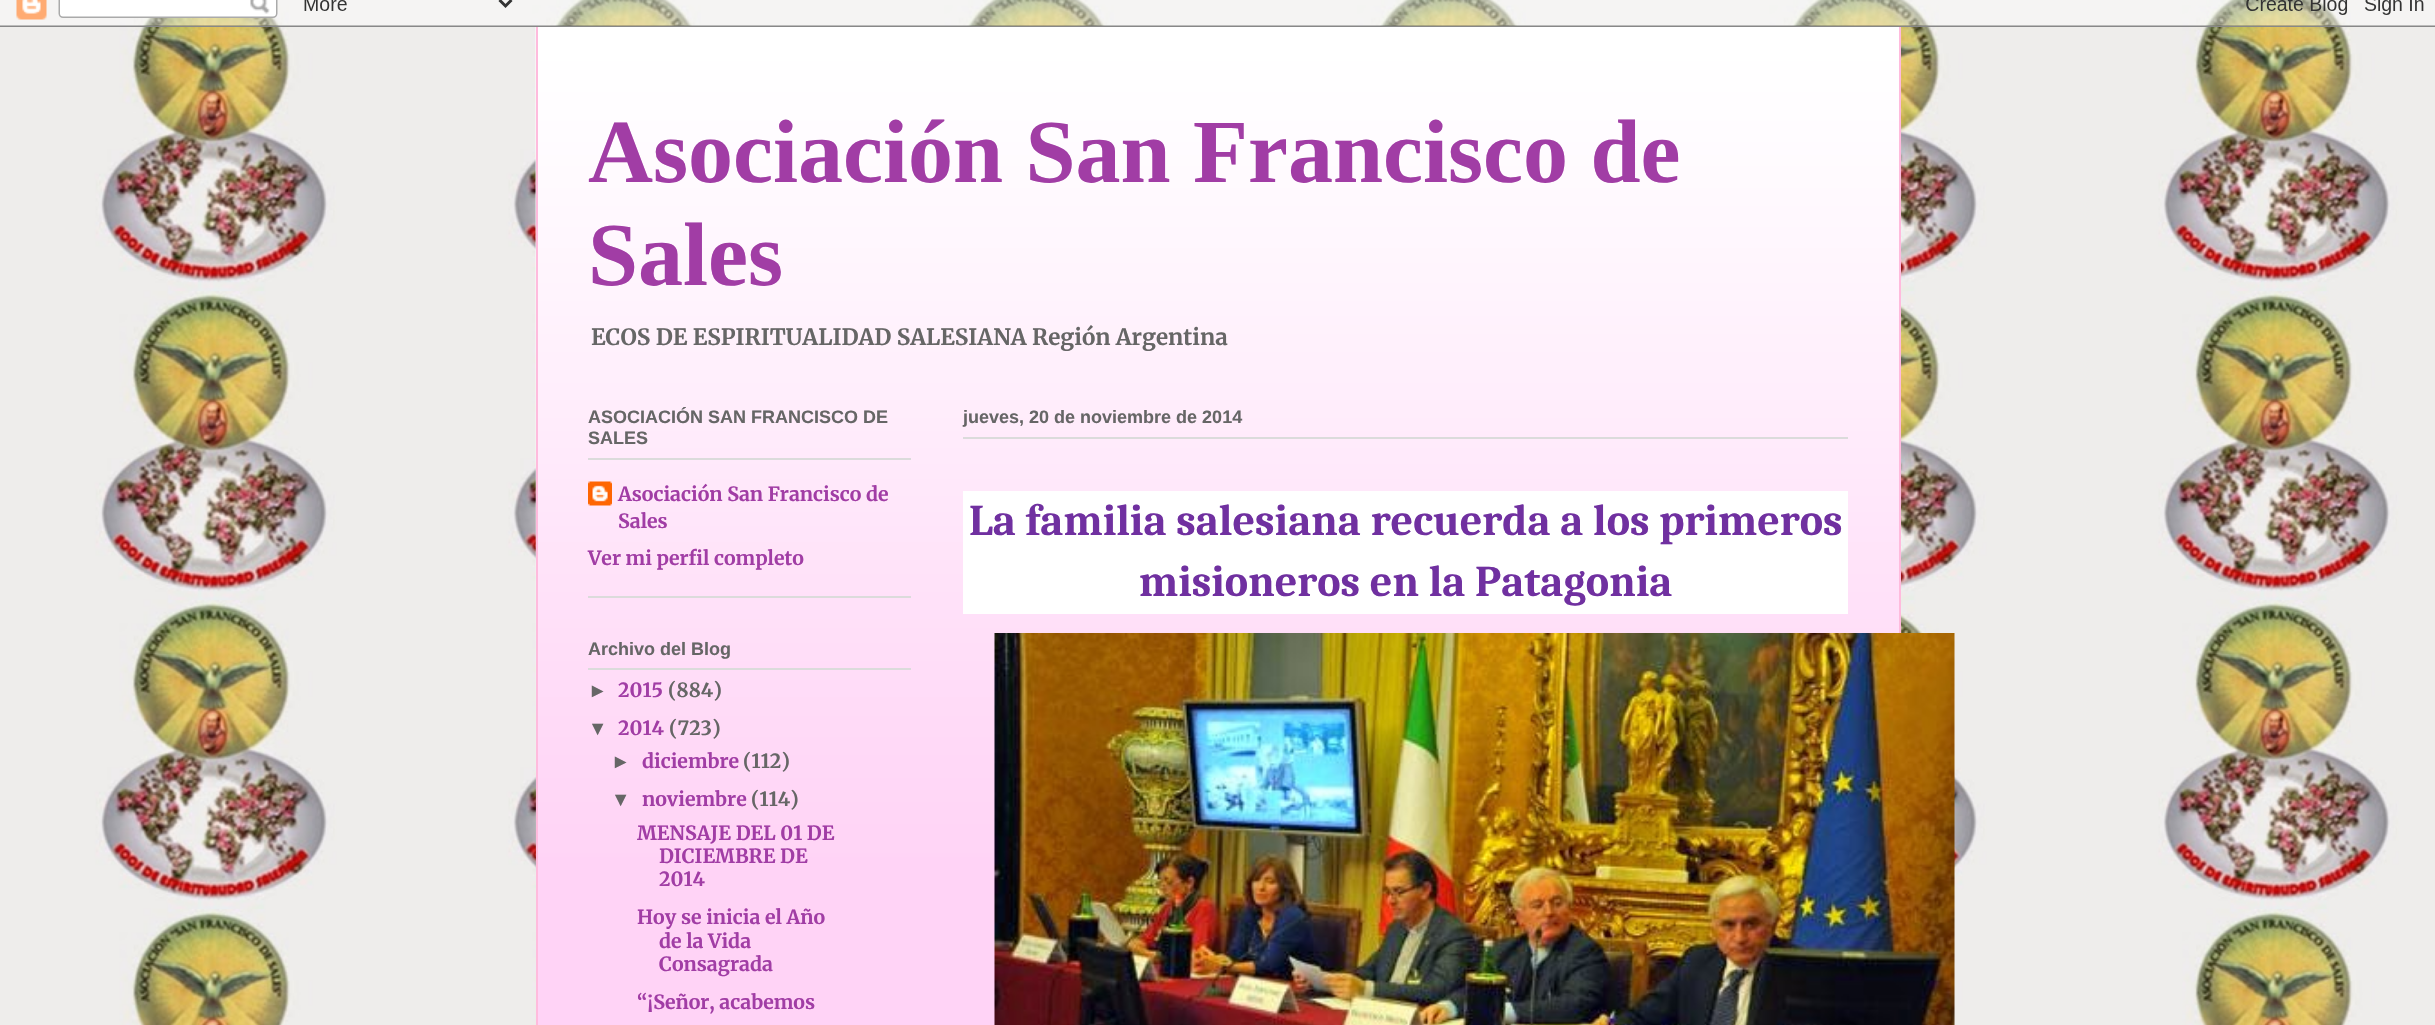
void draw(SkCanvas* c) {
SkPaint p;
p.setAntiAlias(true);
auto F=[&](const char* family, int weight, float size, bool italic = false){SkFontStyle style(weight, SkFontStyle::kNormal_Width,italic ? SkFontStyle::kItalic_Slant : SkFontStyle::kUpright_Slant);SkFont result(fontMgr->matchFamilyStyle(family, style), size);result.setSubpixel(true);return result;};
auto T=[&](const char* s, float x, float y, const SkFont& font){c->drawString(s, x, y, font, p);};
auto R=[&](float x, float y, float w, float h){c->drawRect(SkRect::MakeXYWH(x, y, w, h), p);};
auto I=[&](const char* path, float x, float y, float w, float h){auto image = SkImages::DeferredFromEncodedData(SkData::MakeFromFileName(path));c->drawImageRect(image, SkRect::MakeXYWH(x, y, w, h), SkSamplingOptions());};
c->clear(0xffffffff);
I("1.png",0,0,2435,1025);
I("2.png",0,0,2435,27);
p.setColor(0xffffd3f6);
R(538,37,1361,988);
I("3.png",535,27,1364,830);
p.setColor(0xffffbbdd);
R(1899,27,2,606);
R(536,27,2,998);
auto f1 = F("Liberation Serif",700,90);
p.setColor(0xffa13da5);
T("Asociación San Francisco de",588,182,f1);
T("Sales",588,285,f1);
auto f2 = F("Merriweather",300,22.4);
p.setColor(0xff666666);
T("ECOS DE ESPIRITUALIDAD SALESIANA Región Argentina",591,345,f2);
p.setColor(0xffdbdbdb);
R(588,596,323,2);
R(588,458,323,2);
auto f3 = F("Liberation Sans",700,18);
p.setColor(0xff666666);
T("ASOCIACIÓN SAN FRANCISCO DE",588,423,f3);
T("SALES",588,444,f3);
I("4.png",588,481,24,25);
auto f4 = F("Merriweather",300,19.5);
p.setColor(0xffa13da5);
T("Asociación San Francisco de",618,501,f4);
T("Sales",618,528,f4);
T("Ver mi perfil completo",588,565,f4);
p.setColor(0xffdbdbdb);
R(588,668,323,2);
p.setColor(0xff666666);
T("Archivo del Blog",588,655,f3);
auto f5 = F("Liberation Sans",700,19.5);
T("►",588,697,f5);
p.setColor(0xffa13da5);
T("2015",618,697,f4);
p.setColor(0xff666666);
T("(884)",668,697,f4);
T("▼",588,735,f5);
p.setColor(0xffa13da5);
T("2014",618,735,f4);
p.setColor(0xff666666);
T("(723)",669,735,f4);
T("►",611,768,f5);
p.setColor(0xffa13da5);
T("diciembre",642,768,f4);
p.setColor(0xff666666);
T("(112)",743,768,f4);
T("▼",611,806,f5);
p.setColor(0xffa13da5);
T("noviembre",642,806,f4);
p.setColor(0xff666666);
T("(114)",751,806,f4);
p.setColor(0xffa13da5);
T("MENSAJE DEL 01 DE",637,840,f4);
T("DICIEMBRE DE",659,863,f4);
T("2014",659,886,f4);
T("Hoy se inicia el Año",637,924,f4);
T("de la Vida",659,948,f4);
T("Consagrada",659,971,f4);
T("“¡Señor, acabemos",637,1009,f4);
p.setColor(0xffdbdbdb);
R(963,437,885,2);
p.setColor(0xff666666);
T("jueves, 20 de noviembre de 2014",963,423,f3);
p.setColor(0xffffffff);
R(963,491,885,123);
auto f6 = F("Caladea",700,44);
p.setColor(0xff7030a0);
T("La familia salesiana recuerda a los primeros",969,535,f6);
T("misioneros en la Patagonia",1139,596,f6);
I("5.png",994,633,961,392);
}
